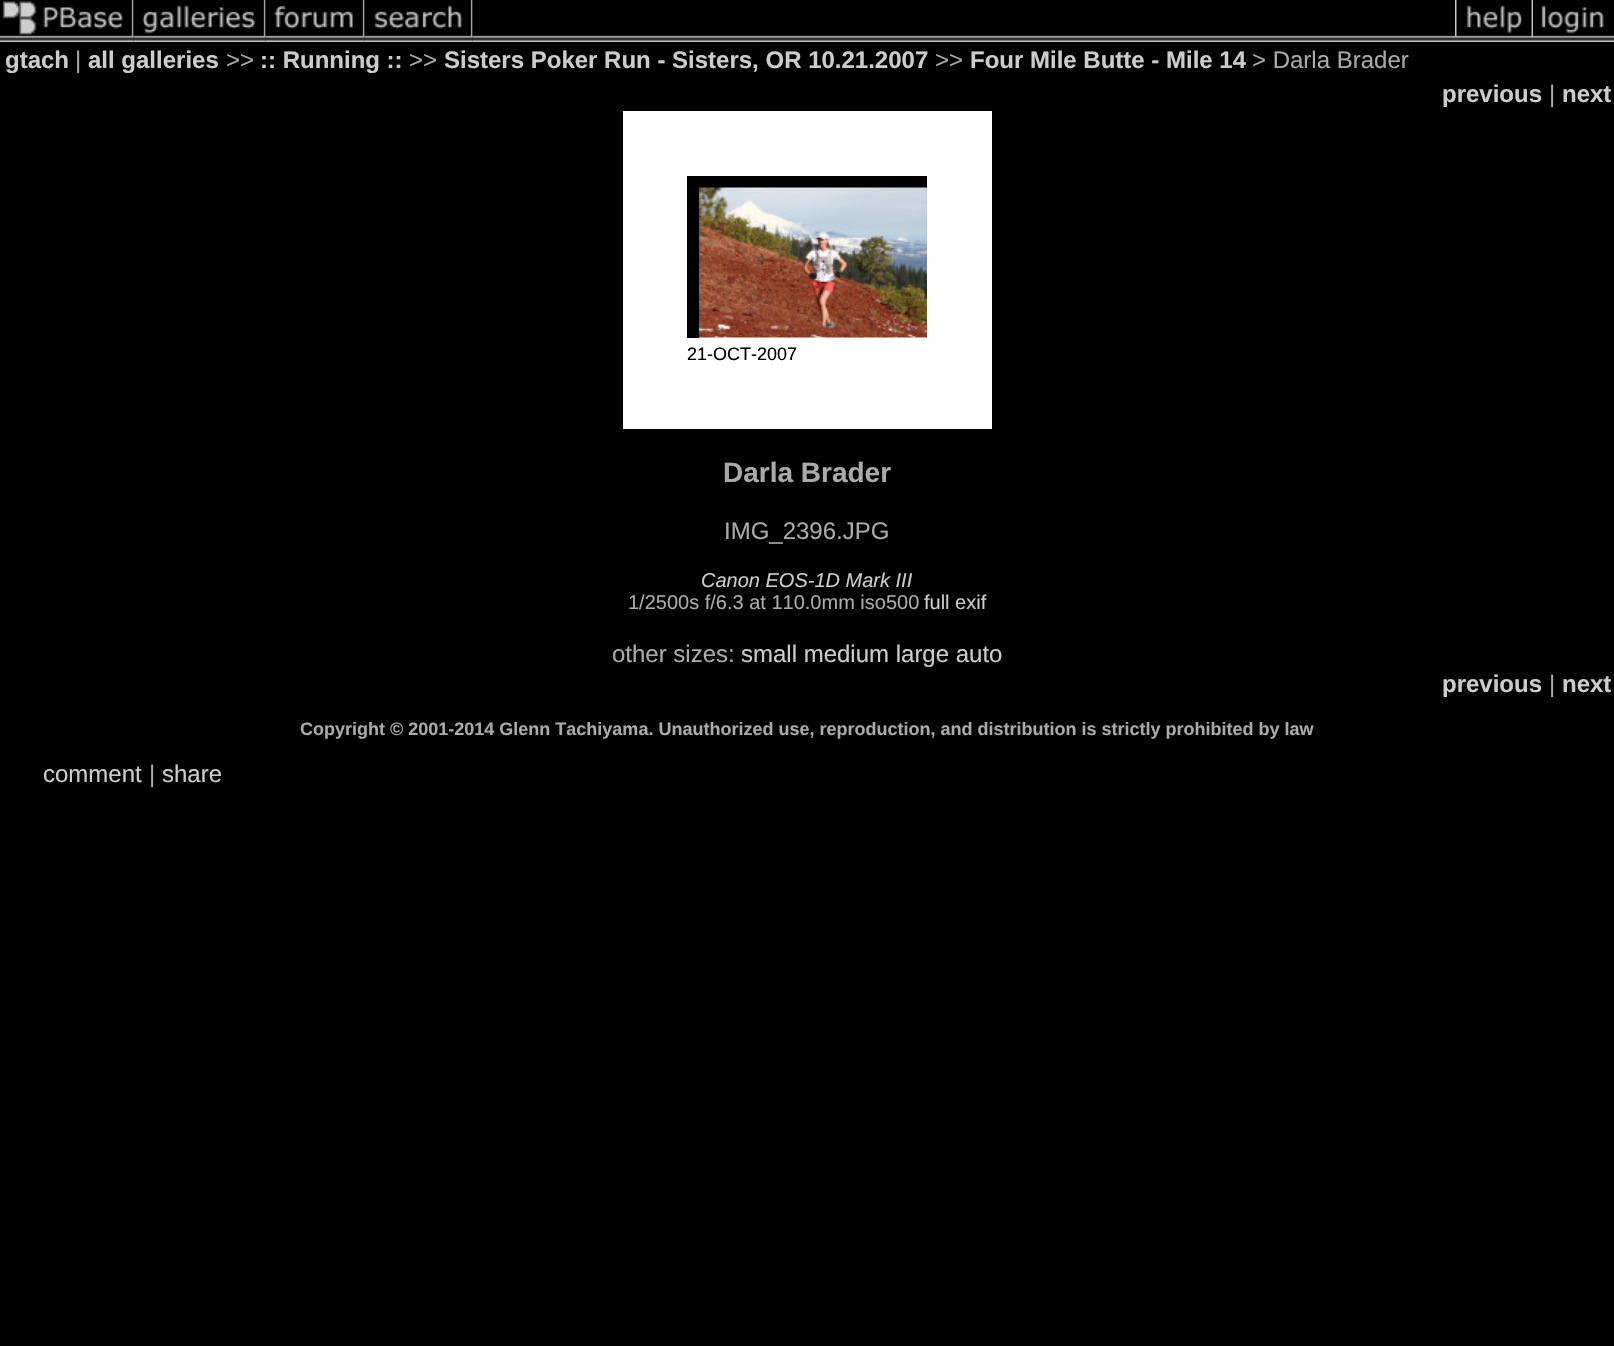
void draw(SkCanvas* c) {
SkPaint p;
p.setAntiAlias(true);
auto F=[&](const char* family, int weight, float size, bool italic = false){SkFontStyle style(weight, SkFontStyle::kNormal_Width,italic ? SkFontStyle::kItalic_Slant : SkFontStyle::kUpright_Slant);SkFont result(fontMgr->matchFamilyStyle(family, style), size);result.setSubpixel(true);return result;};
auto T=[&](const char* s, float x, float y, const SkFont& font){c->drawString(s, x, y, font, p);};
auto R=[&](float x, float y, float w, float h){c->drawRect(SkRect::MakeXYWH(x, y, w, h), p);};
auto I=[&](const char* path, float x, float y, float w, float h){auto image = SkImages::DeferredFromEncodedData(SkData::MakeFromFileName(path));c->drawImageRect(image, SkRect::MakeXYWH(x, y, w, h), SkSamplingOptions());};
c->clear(0xff000000);
I("1.png",0,0,134,42);
I("2.png",133,0,133,42);
I("3.png",265,0,100,42);
I("4.png",364,0,109,42);
I("5.png",472,0,983,42);
I("6.png",1455,0,78,42);
I("7.png",1533,5,81,37);
auto f1 = F("Liberation Sans",700,24);
p.setColor(0xffcccccc);
T("gtach",5,68,f1);
auto f2 = F("Liberation Sans",400,24);
p.setColor(0xffaaaaaa);
T("|",75,68,f2);
p.setColor(0xffcccccc);
T("all galleries",88,68,f1);
p.setColor(0xffaaaaaa);
T(">>",226,68,f2);
p.setColor(0xffcccccc);
T(":: Running ::",260,68,f1);
p.setColor(0xffaaaaaa);
T(">>",409,68,f2);
p.setColor(0xffcccccc);
T("Sisters Poker Run - Sisters, OR 10.21.2007",444,68,f1);
p.setColor(0xffaaaaaa);
T(">>",935,68,f2);
p.setColor(0xffcccccc);
T("Four Mile Butte - Mile 14",970,68,f1);
p.setColor(0xffaaaaaa);
T("> Darla Brader",1252,68,f2);
p.setColor(0xffcccccc);
T("previous",1442,102,f1);
p.setColor(0xffaaaaaa);
T("|",1549,102,f2);
p.setColor(0xffcccccc);
T("next",1562,102,f1);
p.setColor(0xffffffff);
R(623,111,369,318);
c->save();
c->clipRect(SkRect::MakeXYWH(687,176,240,162));
p.setStroke(true);
p.setStrokeWidth(12);
p.setColor(0xff000000);
c->drawRect(SkRect::MakeXYWH(693,182,248,171),p);
c->restore();
I("8.png",699,187,228,151);
auto f3 = F("Liberation Sans",400,18);
p.setStroke(false);
T("21-OCT-2007",687,360,f3);
auto f4 = F("Liberation Sans",700,28);
p.setColor(0xffaaaaaa);
T("Darla Brader",723,482,f4);
T("IMG_2396.JPG",724,539,f2);
auto f5 = F("Liberation Sans",400,20,true);
p.setColor(0xffcccccc);
T("Canon EOS-1D Mark III",701,587,f5);
auto f6 = F("Liberation Sans",400,20);
p.setColor(0xffaaaaaa);
T("1/2500s f/6.3 at 110.0mm iso500",628,609,f6);
p.setColor(0xffcccccc);
T("full exif",924,609,f6);
p.setColor(0xffaaaaaa);
T("other sizes:",612,662,f2);
p.setColor(0xffcccccc);
T("small medium large auto",741,662,f2);
T("previous",1442,692,f1);
p.setColor(0xffaaaaaa);
T("|",1549,692,f2);
p.setColor(0xffcccccc);
T("next",1562,692,f1);
auto f7 = F("Liberation Sans",700,18);
p.setColor(0xffaaaaaa);
T("Copyright © 2001-2014 Glenn Tachiyama. Unauthorized use, reproduction, and distribution is strictly prohibited by law",300,735,f7);
p.setColor(0xffcccccc);
T("comment",43,782,f2);
p.setColor(0xffaaaaaa);
T("|",149,782,f2);
p.setColor(0xffcccccc);
T("share",162,782,f2);
}
